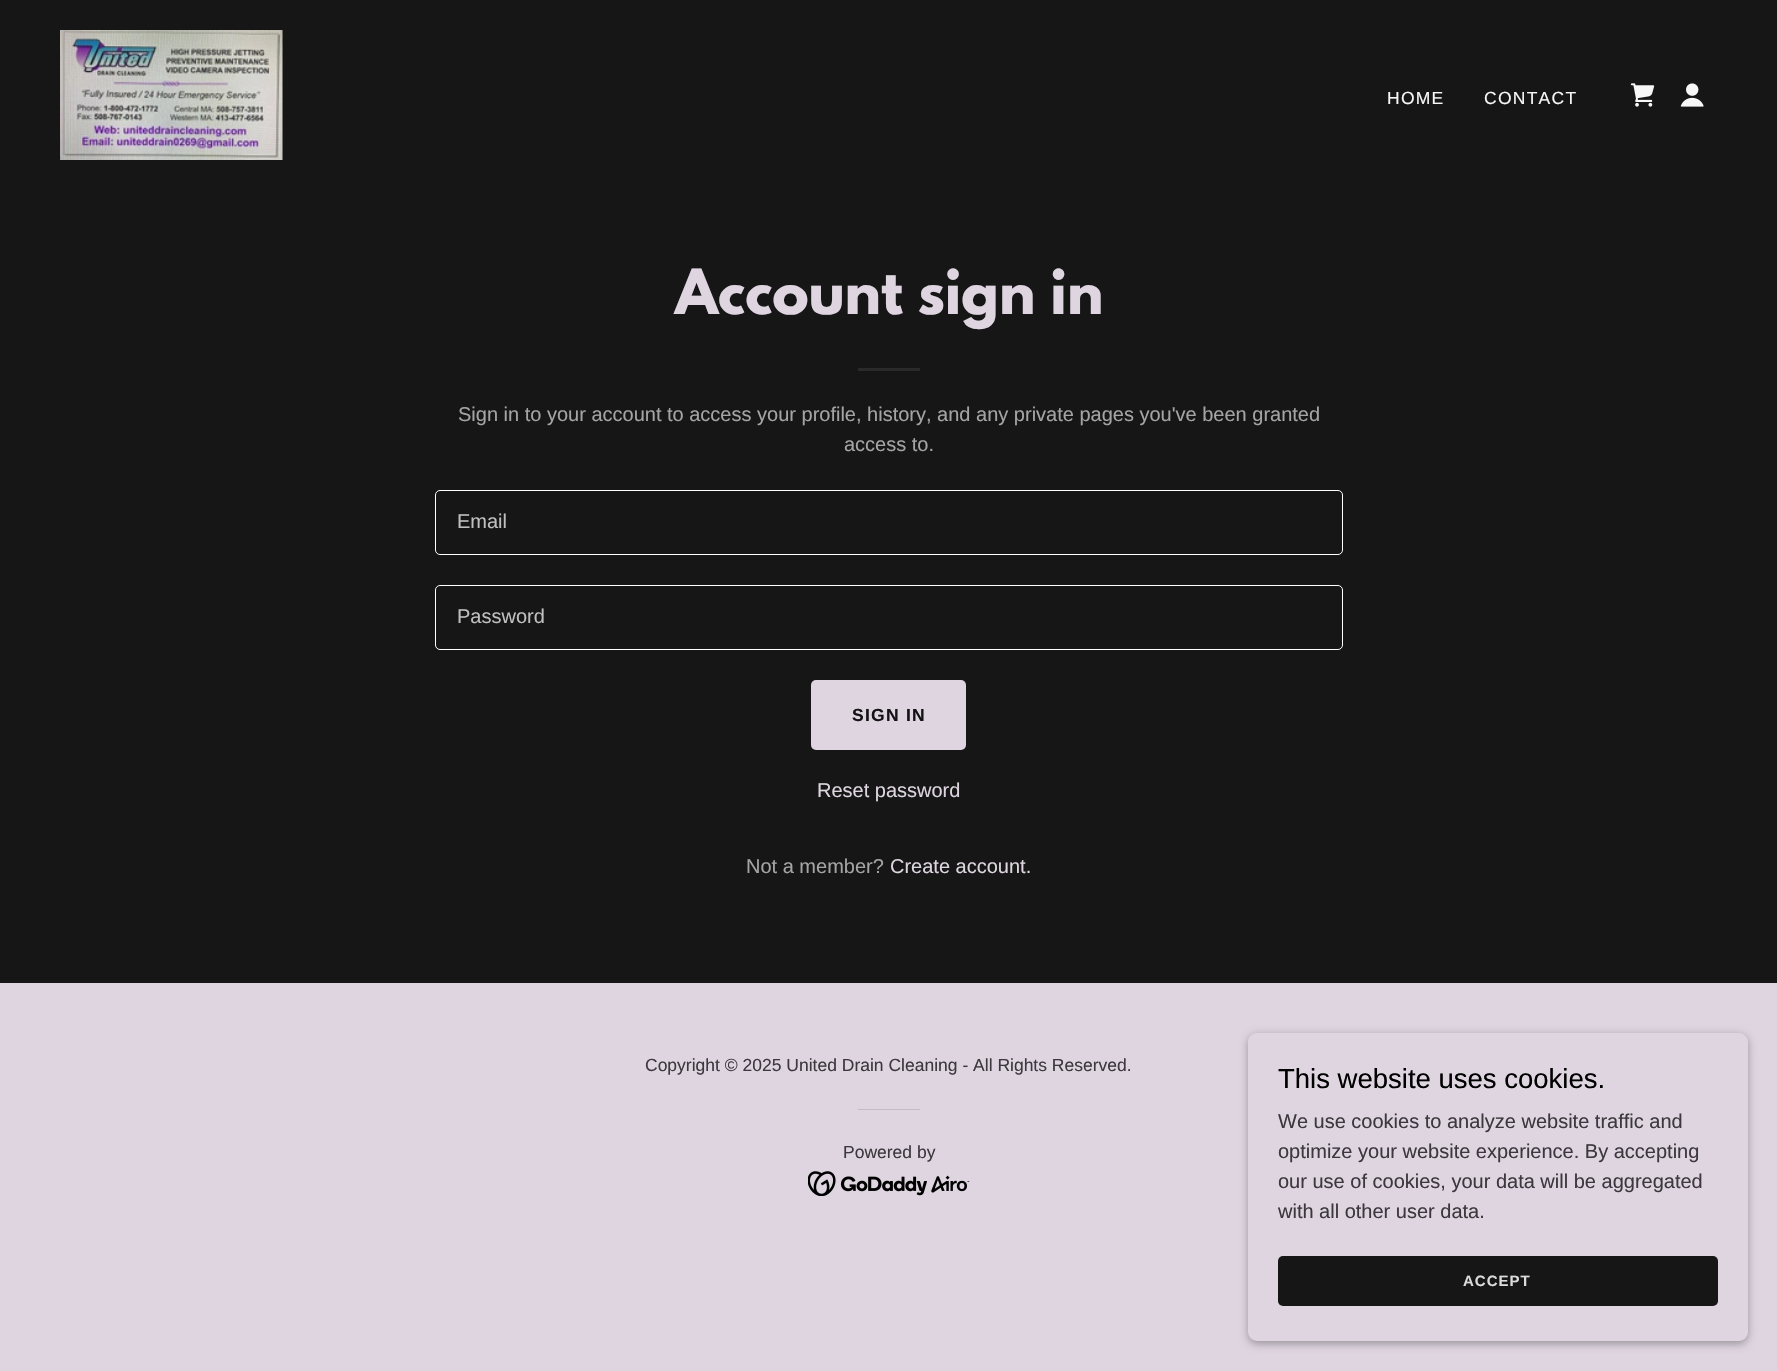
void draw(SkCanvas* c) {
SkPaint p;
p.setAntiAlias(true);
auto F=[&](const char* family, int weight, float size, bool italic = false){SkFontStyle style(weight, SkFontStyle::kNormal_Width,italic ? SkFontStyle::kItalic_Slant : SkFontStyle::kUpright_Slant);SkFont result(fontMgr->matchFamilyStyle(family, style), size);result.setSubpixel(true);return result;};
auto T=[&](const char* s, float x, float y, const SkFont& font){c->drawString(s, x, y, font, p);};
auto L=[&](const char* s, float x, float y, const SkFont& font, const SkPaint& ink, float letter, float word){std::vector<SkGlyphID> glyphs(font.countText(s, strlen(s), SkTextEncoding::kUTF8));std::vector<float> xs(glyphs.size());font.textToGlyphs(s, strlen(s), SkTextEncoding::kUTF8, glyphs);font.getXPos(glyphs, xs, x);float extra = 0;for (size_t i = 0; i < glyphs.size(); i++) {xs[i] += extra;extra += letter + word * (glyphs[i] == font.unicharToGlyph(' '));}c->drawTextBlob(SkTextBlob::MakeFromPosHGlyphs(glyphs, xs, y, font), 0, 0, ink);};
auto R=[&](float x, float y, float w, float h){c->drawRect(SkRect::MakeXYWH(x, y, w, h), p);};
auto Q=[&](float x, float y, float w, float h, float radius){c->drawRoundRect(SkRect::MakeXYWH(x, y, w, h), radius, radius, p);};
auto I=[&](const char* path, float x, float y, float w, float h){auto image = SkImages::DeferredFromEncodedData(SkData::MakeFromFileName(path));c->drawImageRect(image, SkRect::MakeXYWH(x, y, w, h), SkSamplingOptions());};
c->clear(0xffded5e0);
p.setColor(0xff161616);
R(0,0,1777,983);
I("1.png",60,30,223,130);
auto f1 = F("Liberation Sans",400,17.5);
p.setColor(0xfff7f7f7);
L("HOME",1387,104,f1,p,1.25,0);
L("CONTACT",1484,104,f1,p,1.25,0);
I("2.png",1630,83,25,24);
I("3.png",1680,83,24,24);
auto f2 = F("League Spartan",700,55);
p.setColor(0xffded5e0);
T("Account sign in",675,314,f2);
p.setColor(0xff2a2a2a);
R(858,368,62,3);
auto f3 = F("Liberation Sans",400,20);
p.setColor(0xffa4a4a4);
T("Sign in to your account to access your profile, history, and any private pages you've been granted",458,421,f3);
T("access to.",844,451,f3);
p.setStroke(true);
p.setStrokeWidth(1);
p.setColor(0xffffffff);
c->drawRoundRect(SkRect::MakeXYWH(435.5,490.5,907,64),4.5,4.5,p);
p.setStroke(false);
p.setColor(0xffbfbfbf);
T("Email",457,528,f3);
p.setStroke(true);
p.setColor(0xffffffff);
c->drawRoundRect(SkRect::MakeXYWH(435.5,585.5,907,64),4.5,4.5,p);
p.setStroke(false);
p.setColor(0xffbfbfbf);
T("Password",457,623,f3);
p.setColor(0xffded5e0);
Q(811,680,155,70,5);
auto f4 = F("Liberation Sans",700,17.5);
p.setColor(0xff141414);
L("SIGN IN",852,721,f4,p,1.25,0);
p.setColor(0xffded5e0);
T("Reset password",817,797,f3);
p.setColor(0xffa4a4a4);
T("Not a member?",746,873,f3);
p.setColor(0xffded5e0);
T("Create account.",890,873,f3);
p.setColor(0xff3c383d);
T("Copyright © 2025 United Drain Cleaning - All Rights Reserved.",645,1071,f1);
p.setColor(0xffc7b7ca);
R(858,1109,62,1);
p.setColor(0xff3c383d);
T("Powered by",843,1158,f1);
I("4.png",808,1171,162,25);
p.setColor(0x4d000000);
p.setMaskFilter(SkMaskFilter::MakeBlur(kNormal_SkBlurStyle, 4));
c->drawRoundRect(SkRect::MakeXYWH(1248,1035,500,309),9,9,p);
p.setMaskFilter(nullptr);
p.setColor(0xffded5e0);
Q(1248,1033,500,308,9);
auto f5 = F("Liberation Sans",400,27.5);
p.setColor(0xff000000);
T("This website uses cookies.",1278,1088,f5);
p.setColor(0xff3c383d);
T("We use cookies to analyze website traffic and",1278,1128,f3);
T("optimize your website experience. By accepting",1278,1158,f3);
T("our use of cookies, your data will be aggregated",1278,1188,f3);
T("with all other user data.",1278,1218,f3);
p.setColor(0xff161616);
Q(1278,1256,440,50,5);
auto f6 = F("Liberation Sans",700,15);
p.setColor(0xffdbdbdb);
L("ACCEPT",1463,1286,f6,p,1,0);
}
